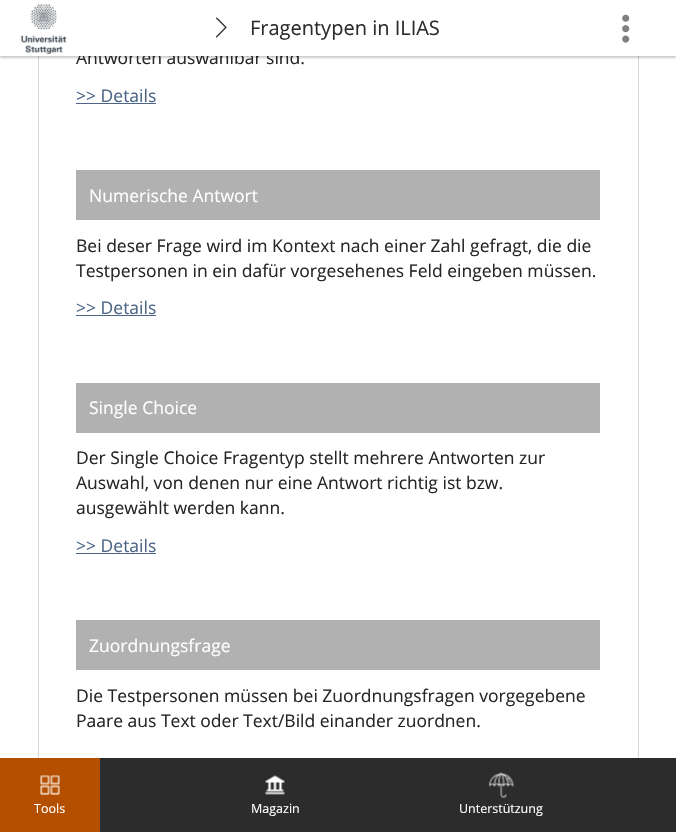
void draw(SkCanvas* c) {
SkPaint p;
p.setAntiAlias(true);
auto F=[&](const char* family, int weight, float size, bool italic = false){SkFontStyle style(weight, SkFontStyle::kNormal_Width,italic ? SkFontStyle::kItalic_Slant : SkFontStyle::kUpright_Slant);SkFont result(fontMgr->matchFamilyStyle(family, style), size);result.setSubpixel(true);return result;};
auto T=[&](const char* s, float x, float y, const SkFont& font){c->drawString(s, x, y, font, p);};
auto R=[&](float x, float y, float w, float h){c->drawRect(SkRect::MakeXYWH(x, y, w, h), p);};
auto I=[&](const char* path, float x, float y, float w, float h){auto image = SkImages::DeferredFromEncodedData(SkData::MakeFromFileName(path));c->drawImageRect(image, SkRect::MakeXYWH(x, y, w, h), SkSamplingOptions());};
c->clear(0xffffffff);
p.setStroke(true);
p.setStrokeWidth(1);
p.setColor(0xffd6d6d6);
c->drawRect(SkRect::MakeXYWH(38.5,-.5,600,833),p);
p.setStroke(false);
p.setColor(0x1a000000);
p.setMaskFilter(SkMaskFilter::MakeBlur(kNormal_SkBlurStyle, 1));
c->drawRect(SkRect::MakeXYWH(0,1,676,57),p);
p.setMaskFilter(nullptr);
p.setMaskFilter(SkMaskFilter::MakeBlur(kNormal_SkBlurStyle, 1));
c->drawRect(SkRect::MakeXYWH(0,1,676,57),p);
p.setMaskFilter(nullptr);
auto f1 = F("Open Sans",400,17.5);
p.setColor(0xff262626);
T("Antworten auswählbar sind.",76,64,f1);
p.setColor(0xffffffff);
R(0,0,676,56);
I("1.png",20,3,47,51);
I("2.png",215,17,12,21);
auto f2 = F("Open Sans",400,20);
p.setColor(0xff2c2c2c);
T("Fragentypen in ILIAS",250,35,f2);
I("3.png",622,14,8,29);
p.setColor(0xff4c6586);
T(">> Details",76,102,f1);
R(76,103,80,1);
p.setColor(0xffb1b1b1);
R(76,170,524,50);
p.setColor(0xffffffff);
T("Numerische Antwort",89,202,f1);
p.setColor(0xff262626);
T("Bei deser Frage wird im Kontext nach einer Zahl gefragt, die die",76,252,f1);
T("Testpersonen in ein dafür vorgesehenes Feld eingeben müssen.",76,277,f1);
p.setColor(0xff4c6586);
T(">> Details",76,314,f1);
R(76,315,80,1);
p.setColor(0xffb1b1b1);
R(76,383,524,50);
p.setColor(0xffffffff);
T("Single Choice",89,414,f1);
p.setColor(0xff262626);
T("Der Single Choice Fragentyp stellt mehrere Antworten zur",76,464,f1);
T("Auswahl, von denen nur eine Antwort richtig ist bzw.",76,489,f1);
T("ausgewählt werden kann.",76,514,f1);
p.setColor(0xff4c6586);
T(">> Details",76,552,f1);
R(76,553,80,1);
p.setColor(0xffb1b1b1);
R(76,620,524,50);
p.setColor(0xffffffff);
T("Zuordnungsfrage",89,652,f1);
p.setColor(0xff262626);
T("Die Testpersonen müssen bei Zuordnungsfragen vorgegebene",76,702,f1);
T("Paare aus Text oder Text/Bild einander zuordnen.",76,727,f1);
p.setColor(0xff2c2c2c);
R(100,758,576,74);
p.setColor(0xffb54f00);
R(0,758,100,74);
I("4.png",40,775,20,20);
auto f3 = F("Open Sans",400,12.5);
p.setColor(0xffffffff);
T("Tools",34,813,f3);
I("5.png",265,775,20,20);
T("Magazin",251,813,f3);
I("6.png",488,772,26,26);
T("Unterstützung",459,813,f3);
}
